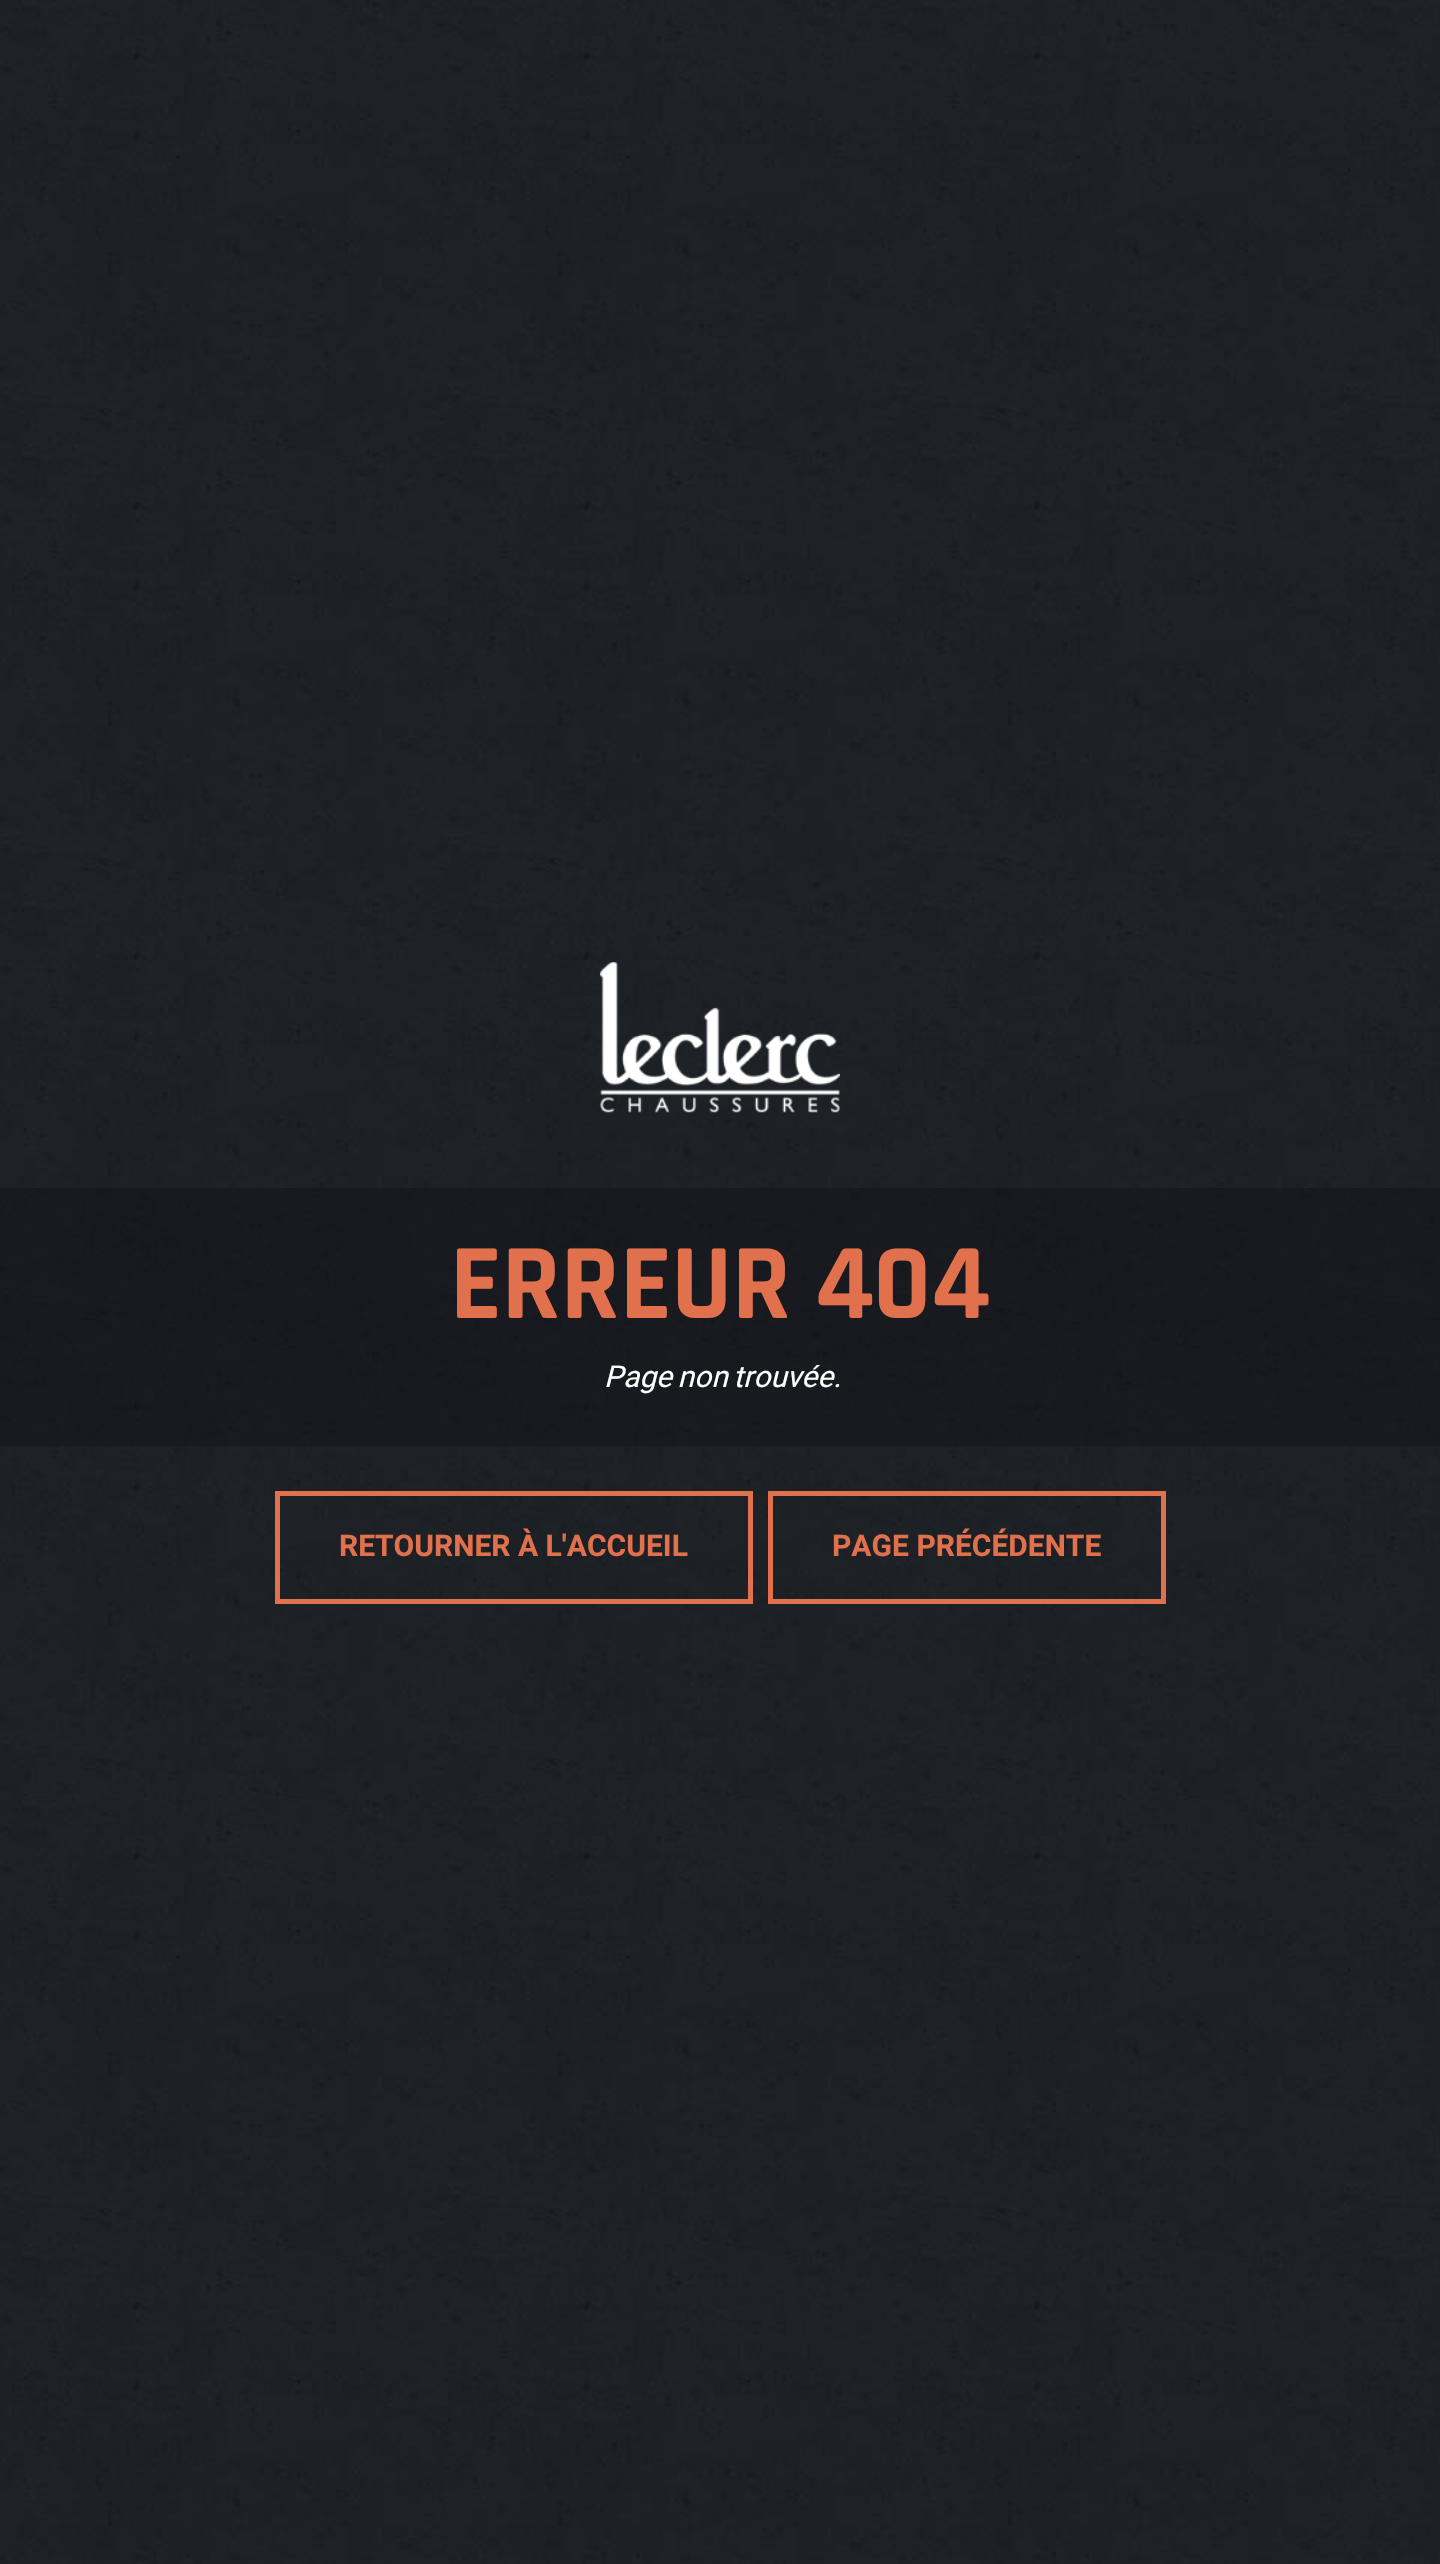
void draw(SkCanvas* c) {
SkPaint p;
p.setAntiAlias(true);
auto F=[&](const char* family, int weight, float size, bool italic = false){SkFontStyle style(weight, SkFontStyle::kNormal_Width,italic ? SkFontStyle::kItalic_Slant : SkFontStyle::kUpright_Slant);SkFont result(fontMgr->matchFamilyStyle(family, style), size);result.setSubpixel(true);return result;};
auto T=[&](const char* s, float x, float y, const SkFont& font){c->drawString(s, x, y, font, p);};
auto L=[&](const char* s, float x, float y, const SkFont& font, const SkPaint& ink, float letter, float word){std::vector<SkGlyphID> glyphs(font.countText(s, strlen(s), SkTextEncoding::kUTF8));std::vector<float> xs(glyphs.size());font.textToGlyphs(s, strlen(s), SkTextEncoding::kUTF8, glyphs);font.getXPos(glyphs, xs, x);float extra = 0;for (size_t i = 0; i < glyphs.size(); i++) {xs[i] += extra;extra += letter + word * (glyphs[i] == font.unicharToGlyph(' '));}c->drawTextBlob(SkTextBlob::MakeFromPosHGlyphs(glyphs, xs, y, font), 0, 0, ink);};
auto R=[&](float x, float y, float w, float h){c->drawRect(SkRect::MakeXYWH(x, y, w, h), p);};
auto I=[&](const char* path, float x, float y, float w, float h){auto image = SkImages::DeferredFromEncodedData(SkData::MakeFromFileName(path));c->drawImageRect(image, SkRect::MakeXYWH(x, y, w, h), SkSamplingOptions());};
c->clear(0xffffffff);
I("1.png",0,0,1440,2564);
I("2.png",600,962,240,151);
p.setColor(0x660f1013);
R(0,1188,1440,258);
auto f1 = F("Rajdhani",700,108);
p.setColor(0xffe1704c);
T("ERREUR 404",450,1318,f1);
auto f2 = F("Heebo",400,30,true);
p.setColor(0xffffffff);
L("Page non trouvée.",604,1387,f2,p,0,-2);
p.setStroke(true);
p.setStrokeWidth(5);
p.setColor(0xffe1704c);
c->drawRect(SkRect::MakeXYWH(277.5,1493.5,473,108),p);
auto f3 = F("Heebo",700,30);
p.setStroke(false);
T("RETOURNER À L'ACCUEIL",339,1556,f3);
p.setStroke(true);
c->drawRect(SkRect::MakeXYWH(770.5,1493.5,393,108),p);
p.setStroke(false);
T("PAGE PRÉCÉDENTE",832,1556,f3);
}
